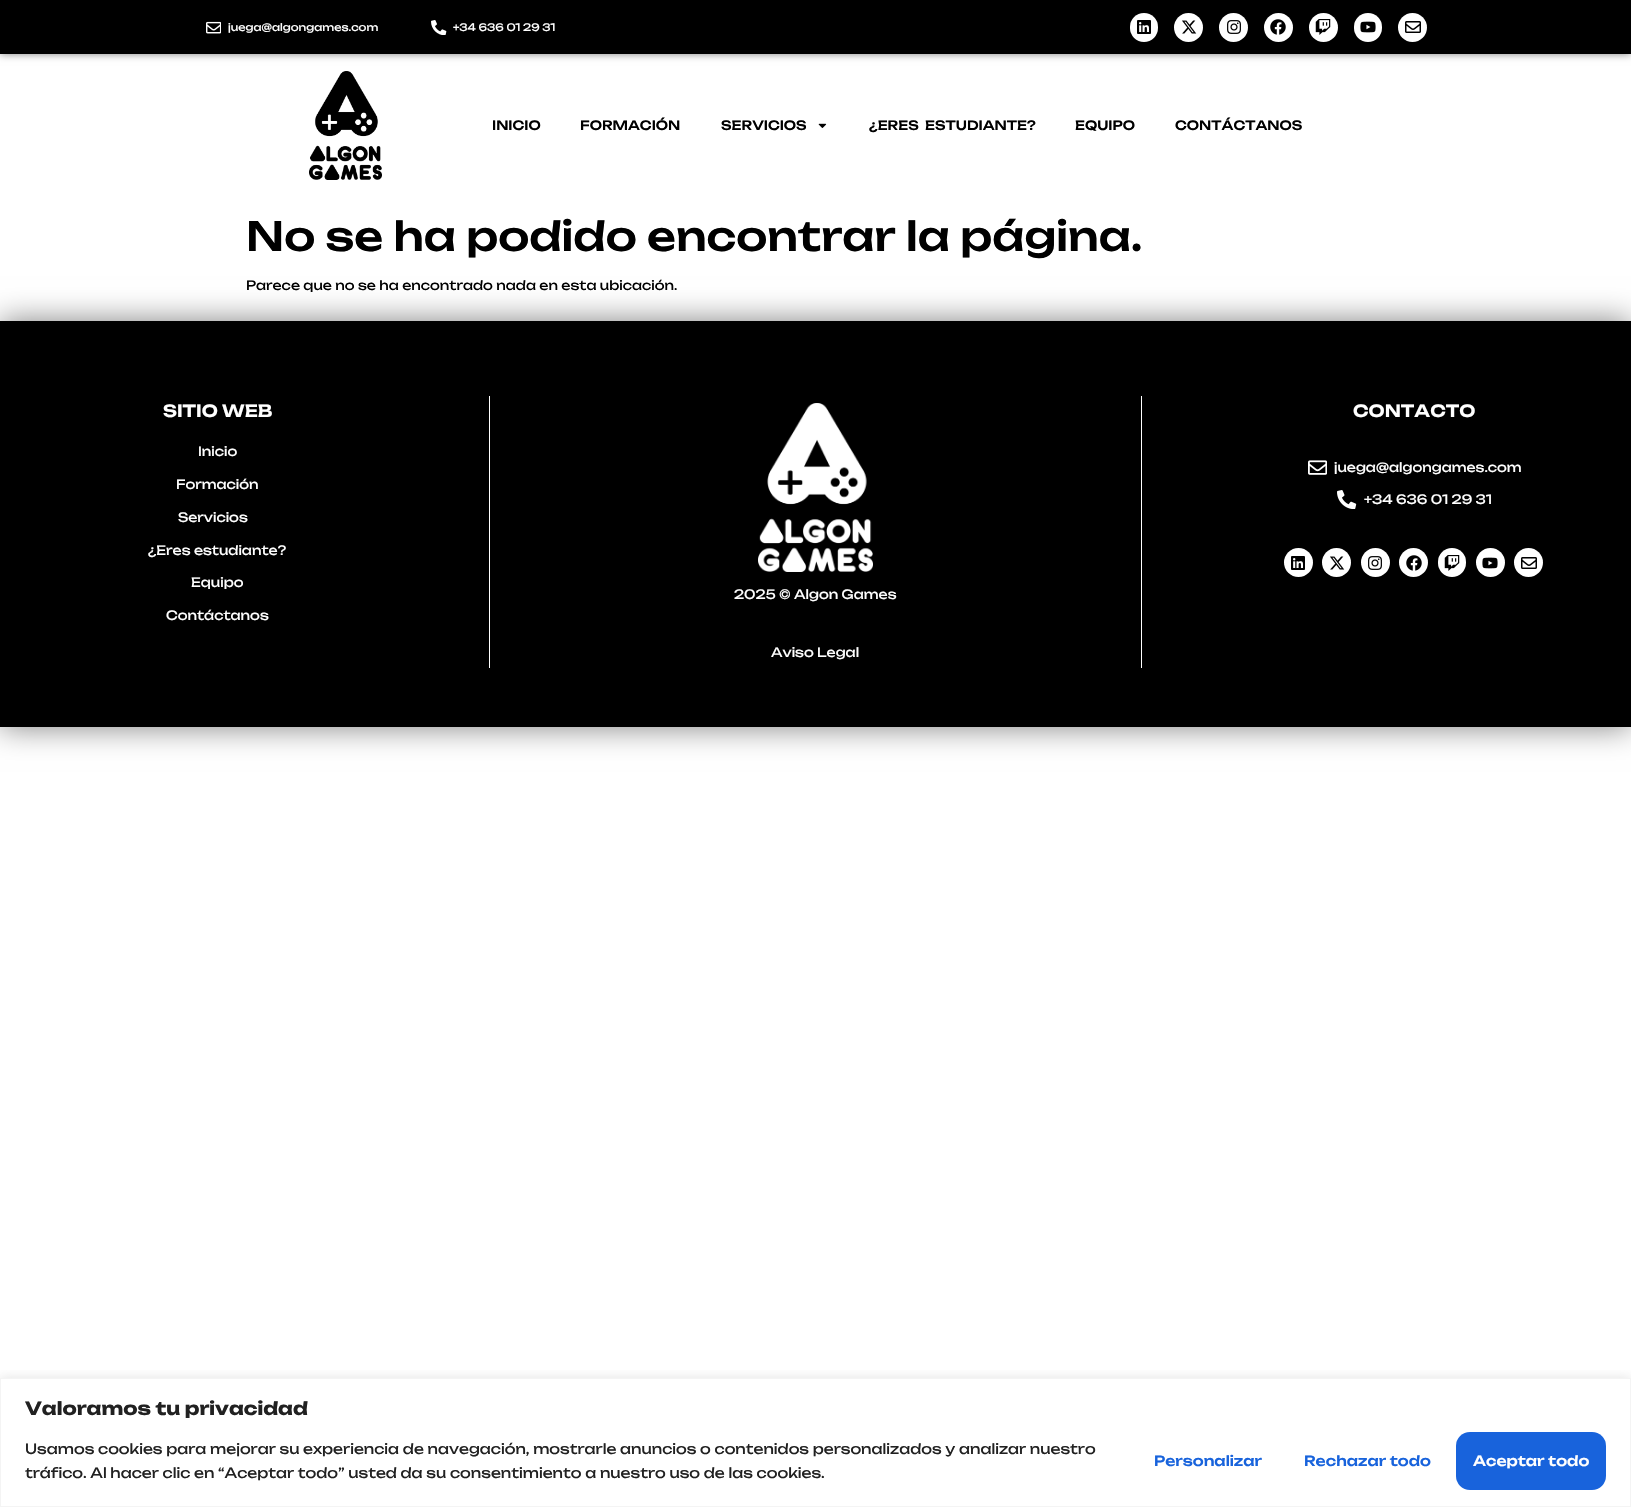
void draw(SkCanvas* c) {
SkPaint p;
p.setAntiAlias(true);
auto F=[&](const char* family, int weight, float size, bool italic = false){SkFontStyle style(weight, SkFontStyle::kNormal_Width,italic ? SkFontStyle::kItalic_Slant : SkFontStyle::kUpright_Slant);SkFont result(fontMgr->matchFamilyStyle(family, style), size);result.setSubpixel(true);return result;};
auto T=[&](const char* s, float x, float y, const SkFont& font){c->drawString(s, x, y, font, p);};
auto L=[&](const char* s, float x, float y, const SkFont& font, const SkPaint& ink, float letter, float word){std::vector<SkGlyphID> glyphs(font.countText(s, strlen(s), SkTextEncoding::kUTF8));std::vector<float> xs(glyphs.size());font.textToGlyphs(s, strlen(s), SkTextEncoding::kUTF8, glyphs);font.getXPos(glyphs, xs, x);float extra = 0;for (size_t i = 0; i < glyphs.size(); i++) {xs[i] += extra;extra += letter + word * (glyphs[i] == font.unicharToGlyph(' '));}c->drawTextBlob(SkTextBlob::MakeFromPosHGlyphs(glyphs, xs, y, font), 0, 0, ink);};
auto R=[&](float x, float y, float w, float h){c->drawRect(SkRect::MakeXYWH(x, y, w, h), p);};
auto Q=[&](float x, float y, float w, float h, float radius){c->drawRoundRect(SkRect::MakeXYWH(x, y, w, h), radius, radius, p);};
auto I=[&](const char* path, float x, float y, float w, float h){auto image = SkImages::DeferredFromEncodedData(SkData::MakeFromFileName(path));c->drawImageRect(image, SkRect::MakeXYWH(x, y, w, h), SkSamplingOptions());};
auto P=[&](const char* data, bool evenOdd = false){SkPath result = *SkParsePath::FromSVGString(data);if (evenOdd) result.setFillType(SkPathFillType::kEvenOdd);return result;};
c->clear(0xffffffff);
p.setColor(0x80000000);
p.setMaskFilter(SkMaskFilter::MakeBlur(kNormal_SkBlurStyle, 4));
c->drawRect(SkRect::MakeXYWH(0,0,1631,54),p);
p.setMaskFilter(nullptr);
p.setColor(0xff000000);
R(0,0,1631,54);
I("1.png",206,21,15,13);
auto f1 = F("Unbounded",400,10.25);
p.setColor(0xffffffff);
T("juega@algongames.com",228,31,f1);
I("2.png",431,20,16,15);
T("+34 636 01 29 31",453,31,f1);
Q(1130,13,28,29,14);
I("3.png",1137,20,14,14);
c->drawCircle(1188.5,27.5,14.5,p);
I("4.png",1182,20,15,14);
c->drawCircle(1233.5,27.5,14.5,p);
I("5.png",1227,20,14,14);
c->drawCircle(1278.5,27.5,14.5,p);
I("6.png",1270,19,16,16);
c->drawCircle(1323.5,27.5,14.5,p);
I("7.png",1315,19,16,16);
Q(1354,13,28,29,14);
I("8.png",1360,21,16,12);
c->drawCircle(1412.5,27.5,14.5,p);
I("9.png",1405,21,16,12);
I("10.png",309,71,73,109);
auto f2 = F("Unbounded",500,12.8);
p.setColor(0xff000000);
T("INICIO",492,130,f2);
T("FORMACIÓN",580,130,f2);
T("SERVICIOS",721,130,f2);
I("11.png",818,123,9,5);
L("¿ERES ESTUDIANTE?",869,130,f2,p,0,3);
T("EQUIPO",1075,130,f2);
T("CONTÁCTANOS",1175,130,f2);
auto f3 = F("Unbounded",500,40);
T("No se ha podido encontrar la página.",246,251,f3);
auto f4 = F("Unbounded",400,12.8);
T("Parece que no se ha encontrado nada en esta ubicación.",246,290,f4);
R(0,321,1631,406);
c->save();
c->clipPath(P("M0 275h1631v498h-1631zm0 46h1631v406h-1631z",true),true);
p.setColor(0x80000000);
p.setMaskFilter(SkMaskFilter::MakeBlur(kNormal_SkBlurStyle, 15));
c->drawRect(SkRect::MakeXYWH(0,321,1631,406),p);
p.setMaskFilter(nullptr);
c->restore();
auto f5 = F("Unbounded",600,16.75);
p.setColor(0xffffffff);
T("SITIO WEB",163,417,f5);
T("Inicio",198,456,f4);
T("Formación",176,489,f4);
T("Servicios",178,522,f4);
T("¿Eres estudiante?",148,555,f4);
T("Equipo",191,587,f4);
T("Contáctanos",166,620,f4);
R(489,396,1,272);
R(1141,396,1,272);
T("CONTACTO",1353,417,f5);
I("12.png",1308,460,19,15);
T("juega@algongames.com",1334,472,f4);
I("13.png",1337,490,20,19);
T("+34 636 01 29 31",1364,504,f4);
c->drawCircle(1298.5,562.5,14.5,p);
I("3.png",1291,556,14,14);
c->drawCircle(1336.5,562.5,14.5,p);
I("4.png",1330,556,15,14);
c->drawCircle(1375.5,562.5,14.5,p);
I("5.png",1368,556,14,14);
c->drawCircle(1413.5,562.5,14.5,p);
I("6.png",1406,555,16,16);
Q(1438,548,28,29,14);
I("7.png",1444,555,16,16);
c->drawCircle(1490.5,562.5,14.5,p);
I("8.png",1482,557,16,12);
c->drawCircle(1528.5,562.5,14.5,p);
I("9.png",1521,557,16,12);
I("14.png",758,403,115,169);
T("2025 © Algon Games",734,599,f4);
T("Aviso Legal",771,657,f4);
c->save();
c->clipRect(SkRect::MakeXYWH(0,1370,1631,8));
p.setColor(0x4dacabab);
p.setMaskFilter(SkMaskFilter::MakeBlur(kNormal_SkBlurStyle, 5));
c->drawRect(SkRect::MakeXYWH(0,1377,1631,129),p);
p.setMaskFilter(nullptr);
c->restore();
p.setStroke(true);
p.setStrokeWidth(1);
p.setColor(0xfff4f4f4);
c->drawRect(SkRect::MakeXYWH(.5,1378.5,1630,128),p);
auto f6 = F("Unbounded",700,18);
p.setStroke(false);
p.setColor(0xff212121);
T("Valoramos tu privacidad",25,1415,f6);
auto f7 = F("Unbounded",400,14);
T("Usamos cookies para mejorar su experiencia de navegación, mostrarle anuncios o contenidos personalizados y analizar nuestro",25,1454,f7);
T("tráfico. Al hacer clic en “Aceptar todo” usted da su consentimiento a nuestro uso de las cookies.",25,1478,f7);
auto f8 = F("Unbounded",500,14);
p.setColor(0xff1863dc);
T("Personalizar",1154,1466,f8);
T("Rechazar todo",1304,1466,f8);
Q(1456,1432,150,58,14);
p.setColor(0xffffffff);
T("Aceptar todo",1473,1466,f8);
}
